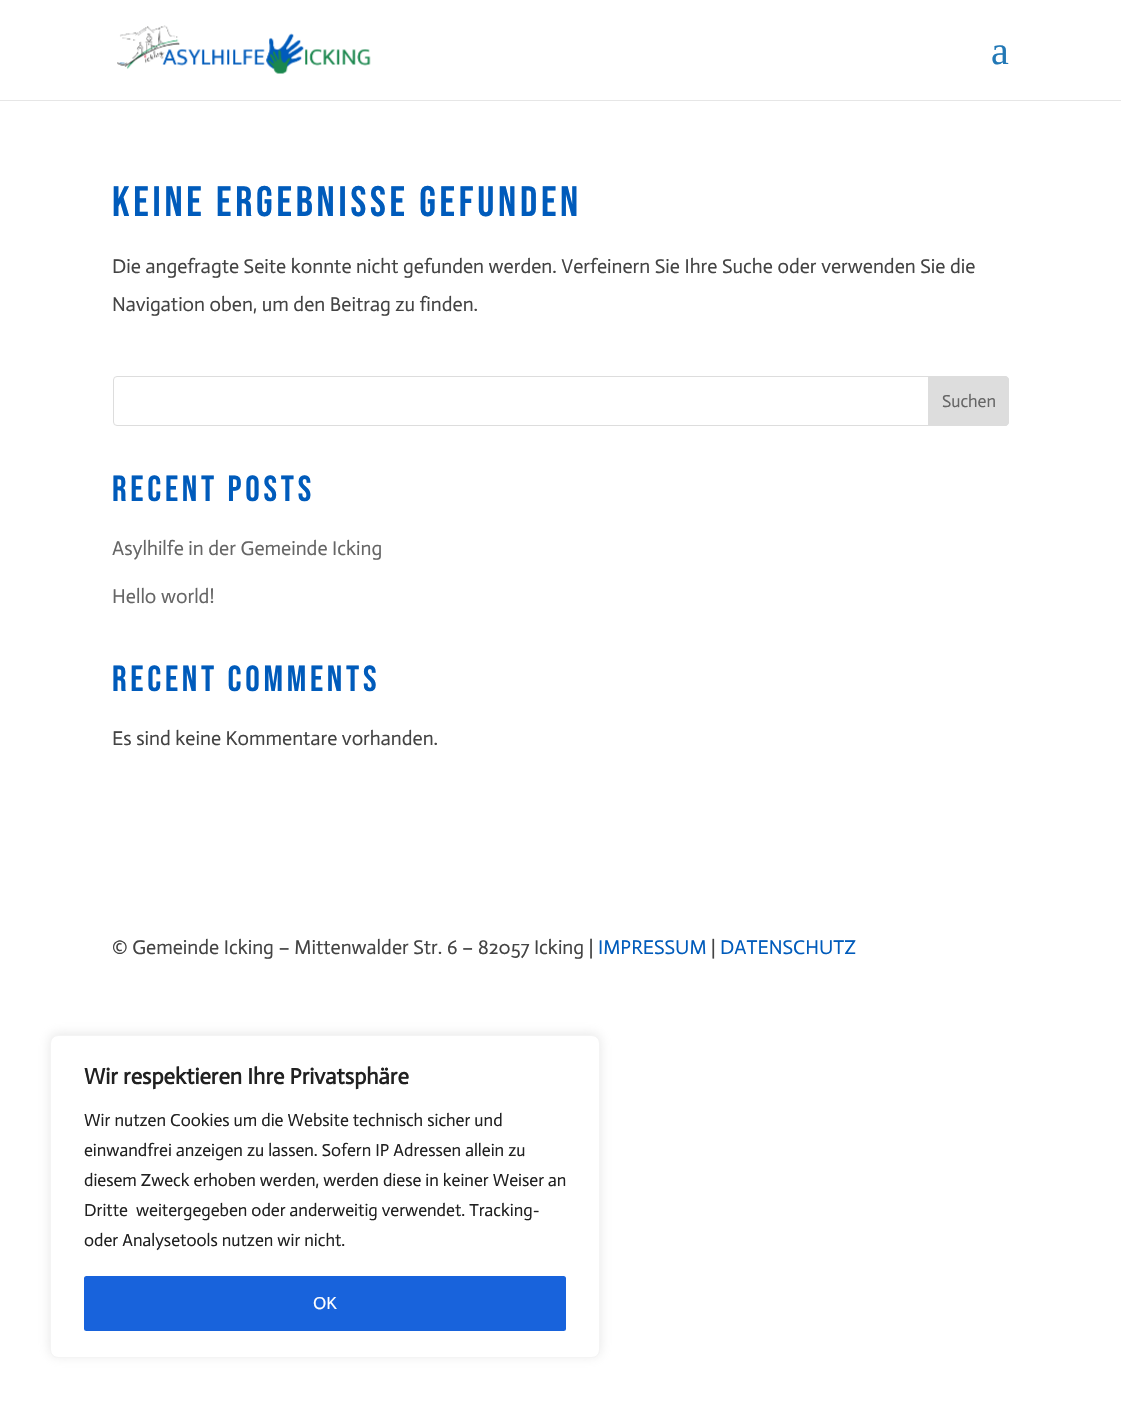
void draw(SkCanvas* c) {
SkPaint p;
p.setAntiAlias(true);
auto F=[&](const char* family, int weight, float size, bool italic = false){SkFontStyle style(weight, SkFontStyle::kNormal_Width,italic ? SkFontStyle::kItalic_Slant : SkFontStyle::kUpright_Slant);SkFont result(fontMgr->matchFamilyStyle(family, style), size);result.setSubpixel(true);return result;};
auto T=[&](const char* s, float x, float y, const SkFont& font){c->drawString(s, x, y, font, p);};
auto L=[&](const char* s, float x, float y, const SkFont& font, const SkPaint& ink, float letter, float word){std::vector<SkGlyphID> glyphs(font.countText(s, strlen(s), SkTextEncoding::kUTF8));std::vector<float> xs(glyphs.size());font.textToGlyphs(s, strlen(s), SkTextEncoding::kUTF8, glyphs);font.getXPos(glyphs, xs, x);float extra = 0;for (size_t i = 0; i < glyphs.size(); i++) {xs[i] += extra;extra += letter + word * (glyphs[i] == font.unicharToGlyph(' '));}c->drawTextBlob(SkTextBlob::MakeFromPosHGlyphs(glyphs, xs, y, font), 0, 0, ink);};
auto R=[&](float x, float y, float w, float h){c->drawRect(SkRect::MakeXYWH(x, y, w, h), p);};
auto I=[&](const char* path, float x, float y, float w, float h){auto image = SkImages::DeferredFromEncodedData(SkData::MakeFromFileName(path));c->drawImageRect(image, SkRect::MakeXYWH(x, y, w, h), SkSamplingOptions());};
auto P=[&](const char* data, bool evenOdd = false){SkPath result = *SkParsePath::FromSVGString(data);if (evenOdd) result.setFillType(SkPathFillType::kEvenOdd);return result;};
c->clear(0xffffffff);
p.setColor(0xffe6e6e6);
R(0,100,1121,1);
I("1.png",117,25,254,49);
auto f1 = F("Liberation Serif",400,40);
p.setColor(0xff2278b6);
T("a",991,64,f1);
auto f2 = F("Bebas Neue",400,42.5);
p.setColor(0xff005bbb);
L("Keine Ergebnisse gefunden",112,216,f2,p,3.75,0);
auto f3 = F("Actor",400,20);
p.setColor(0xff444444);
T("Die angefragte Seite konnte nicht gefunden werden. Verfeinern Sie Ihre Suche oder verwenden Sie die",112,273,f3);
T("Navigation oben, um den Beitrag zu finden.",112,311,f3);
p.setStroke(true);
p.setStrokeWidth(1);
p.setColor(0xffdddddd);
c->drawRoundRect(SkRect::MakeXYWH(113.5,376.5,895,49),3.5,3.5,p);
p.setStroke(false);
c->drawPath(P("M928.5 376.5h76.5c2 0 3.5 1.5 3.5 3.5v42c0 2-1.5 3.5-3.5 3.5h-76.5z"),p);
p.setStroke(true);
c->drawPath(P("M928.5 376.5h76.5c2 0 3.5 1.5 3.5 3.5v42c0 2-1.5 3.5-3.5 3.5h-76.5z"),p);
auto f4 = F("Actor",400,17.5);
p.setStroke(false);
p.setColor(0xff666666);
T("Suchen",942,407,f4);
auto f5 = F("Bebas Neue",400,36.25);
p.setColor(0xff005bbb);
L("Recent Posts",112,501,f5,p,3.75,0);
p.setColor(0xff666666);
T("Asylhilfe in der Gemeinde Icking",112,555,f3);
T("Hello world!",112,603,f3);
p.setColor(0xff005bbb);
L("Recent Comments",112,691,f5,p,3.75,0);
p.setColor(0xff444444);
T("Es sind keine Kommentare vorhanden.",112,745,f3);
T("© Gemeinde Icking – Mittenwalder Str. 6 – 82057 Icking |",112,954,f3);
p.setColor(0xff005bbb);
T("IMPRESSUM",598,954,f3);
p.setColor(0xff444444);
T("|",711,954,f3);
p.setColor(0xff005bbb);
T("DATENSCHUTZ",720,954,f3);
p.setColor(0x4dacabab);
p.setMaskFilter(SkMaskFilter::MakeBlur(kNormal_SkBlurStyle, 6));
c->drawRoundRect(SkRect::MakeXYWH(50,1034,550,322),8,8,p);
p.setMaskFilter(nullptr);
p.setColor(0xffffffff);
c->drawRoundRect(SkRect::MakeXYWH(50.5,1035.5,549,322),7.5,7.5,p);
p.setStroke(true);
p.setColor(0xfff4f4f4);
c->drawRoundRect(SkRect::MakeXYWH(50.5,1035.5,549,322),7.5,7.5,p);
auto f6 = F("Actor",700,22.5);
p.setStroke(false);
p.setColor(0xff212121);
T("Wir respektieren Ihre Privatsphäre",84,1084,f6);
T("Wir nutzen Cookies um die Website technisch sicher und",84,1126,f4);
T("einwandfrei anzeigen zu lassen. Sofern IP Adressen allein zu",84,1156,f4);
T("diesem Zweck erhoben werden, werden diese in keiner Weiser an",84,1186,f4);
T("Dritte  weitergegeben oder anderweitig verwendet. Tracking-",84,1216,f4);
T("oder Analysetools nutzen wir nicht.",84,1246,f4);
p.setColor(0xff1863dc);
c->drawRoundRect(SkRect::MakeXYWH(85.5,1277.5,479,52),1,1,p);
p.setStroke(true);
p.setStrokeWidth(3);
c->drawRoundRect(SkRect::MakeXYWH(85.5,1277.5,479,52),1,1,p);
p.setStroke(false);
p.setColor(0xffffffff);
T("OK",313,1309,f4);
}
